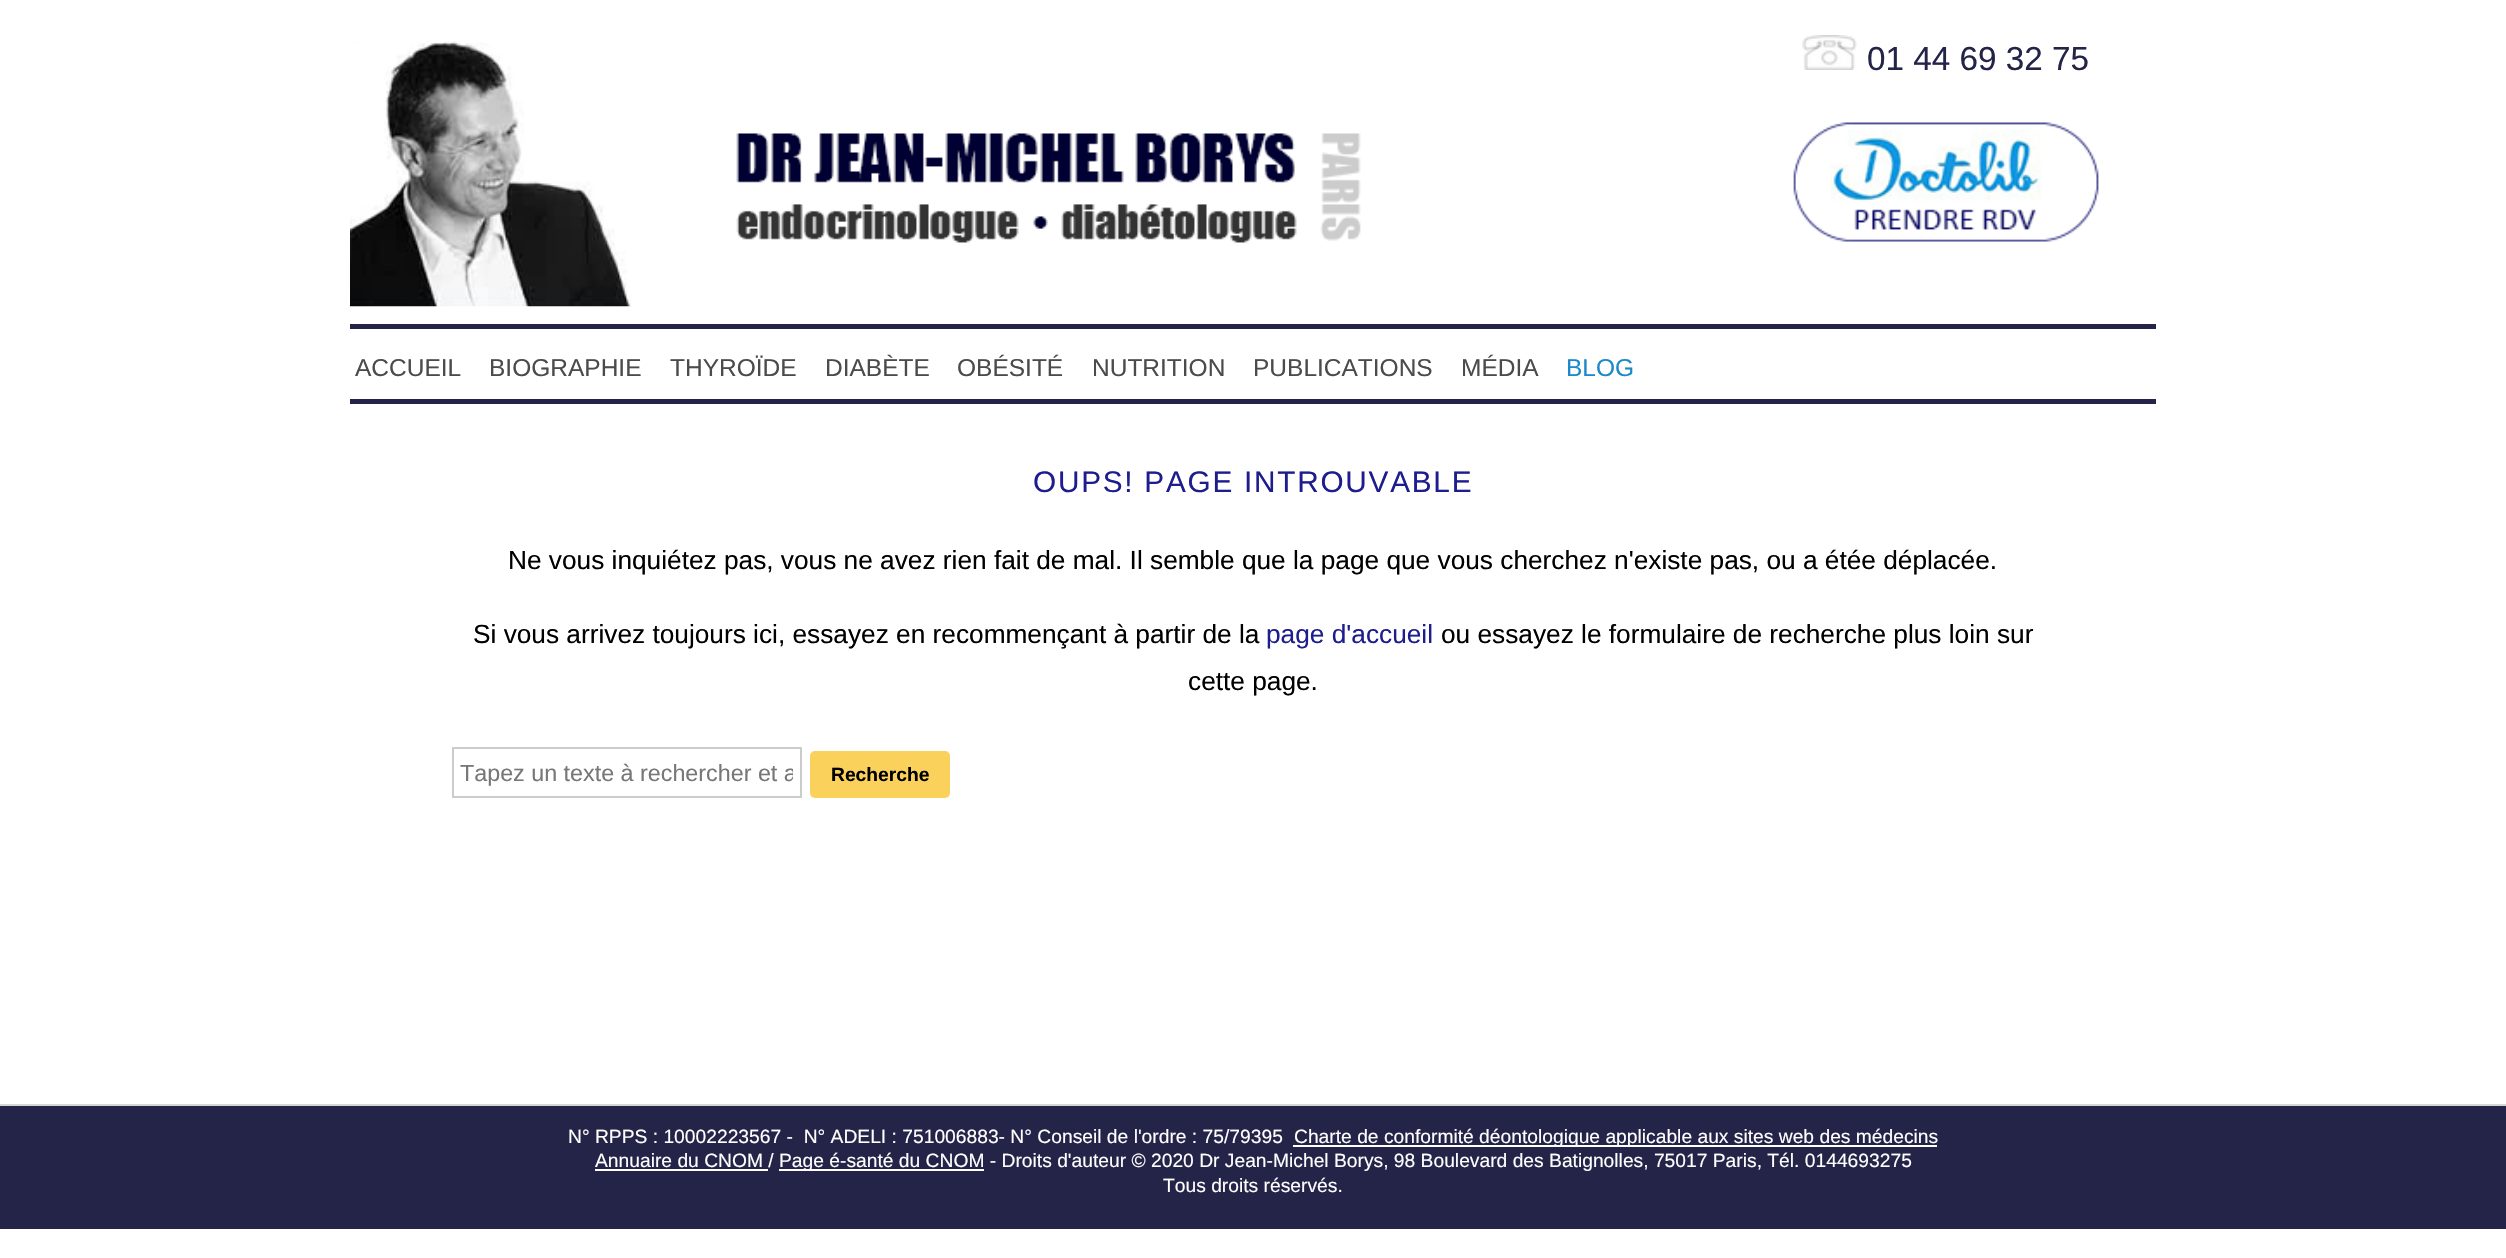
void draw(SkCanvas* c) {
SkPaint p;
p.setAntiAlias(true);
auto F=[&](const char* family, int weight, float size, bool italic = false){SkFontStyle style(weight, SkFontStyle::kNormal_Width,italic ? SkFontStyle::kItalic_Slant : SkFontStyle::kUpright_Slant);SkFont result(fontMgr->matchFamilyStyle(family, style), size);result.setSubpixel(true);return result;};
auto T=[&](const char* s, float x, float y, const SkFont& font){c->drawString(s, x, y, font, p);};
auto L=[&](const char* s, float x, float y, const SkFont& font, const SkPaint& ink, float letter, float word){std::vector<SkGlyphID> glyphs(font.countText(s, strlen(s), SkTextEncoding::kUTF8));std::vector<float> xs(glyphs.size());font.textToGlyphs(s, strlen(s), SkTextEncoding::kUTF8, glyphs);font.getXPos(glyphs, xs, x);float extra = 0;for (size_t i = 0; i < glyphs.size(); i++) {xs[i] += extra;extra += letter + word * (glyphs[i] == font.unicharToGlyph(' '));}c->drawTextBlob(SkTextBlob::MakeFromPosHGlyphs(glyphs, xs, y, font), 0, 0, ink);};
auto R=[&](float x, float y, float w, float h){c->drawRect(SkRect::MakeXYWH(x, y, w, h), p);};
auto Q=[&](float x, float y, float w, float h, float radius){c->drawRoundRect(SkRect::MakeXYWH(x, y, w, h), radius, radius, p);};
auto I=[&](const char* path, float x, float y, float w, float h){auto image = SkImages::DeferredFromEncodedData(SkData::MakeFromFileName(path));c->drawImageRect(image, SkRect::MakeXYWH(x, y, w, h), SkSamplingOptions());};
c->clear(0xffffffff);
I("1.png",350,41,1011,266);
I("2.png",1802,35,55,35);
auto f1 = F("Liberation Sans",400,33.25);
p.setColor(0xff242448);
T("01 44 69 32 75",1867,70,f1);
I("3.png",1793,122,306,120);
R(350,324,1806,5);
R(350,399,1806,5);
auto f2 = F("Liberation Sans",400,24.5);
p.setColor(0xff4d4b49);
T("ACCUEIL",355,376,f2);
T("BIOGRAPHIE",489,376,f2);
T("THYROÏDE",670,376,f2);
T("DIABÈTE",825,376,f2);
T("OBÉSITÉ",957,376,f2);
T("NUTRITION",1092,376,f2);
T("PUBLICATIONS",1253,376,f2);
T("MÉDIA",1461,376,f2);
p.setColor(0xff1c89ca);
T("BLOG",1566,376,f2);
auto f3 = F("Liberation Sans",400,29.75);
p.setColor(0xff1d1d8d);
L("OUPS! PAGE INTROUVABLE",1033,492,f3,p,1.75,0);
auto f4 = F("Liberation Sans",400,26.25);
p.setColor(0xff000000);
T("Ne vous inquiétez pas, vous ne avez rien fait de mal. Il semble que la page que vous cherchez n'existe pas, ou a étée déplacée.",508,569,f4);
T("Si vous arrivez toujours ici, essayez en recommençant à partir de la",473,643,f4);
p.setColor(0xff1d1d8d);
T("page d'accueil",1266,643,f4);
p.setColor(0xff000000);
T("ou essayez le formulaire de recherche plus loin sur",1441,643,f4);
T("cette page.",1188,690,f4);
p.setStroke(true);
p.setStrokeWidth(2);
p.setColor(0xffcccccc);
c->drawRect(SkRect::MakeXYWH(453,748,348,49),p);
c->save();
c->clipRect(SkRect::MakeXYWH(460,760,333,26));
auto f5 = F("Liberation Sans",400,23.3);
p.setStroke(false);
p.setColor(0xff777777);
T("Tapez un texte à rechercher et a",460,781,f5);
c->restore();
p.setColor(0xfffad15b);
Q(810,751,140,47,5);
auto f6 = F("Liberation Sans",700,19.25);
p.setColor(0xff000000);
T("Recherche",831,781,f6);
p.setColor(0xffd6d6d6);
R(0,1104,2506,2);
p.setColor(0xff242448);
R(0,1106,2506,123);
auto f7 = F("Liberation Sans",400,19.25);
p.setColor(0xffffffff);
T("N° RPPS : 10002223567 -  N° ADELI : 751006883- N° Conseil de l'ordre : 75/79395",568,1143,f7);
R(1293,1145,644,2);
T("Charte de conformité déontologique applicable aux sites web des médecins",1294,1143,f7);
T("Annuaire du CNOM /",595,1167,f7);
R(595,1169,173,2);
R(779,1169,205,2);
T("Page é-santé du CNOM - Droits d'auteur © 2020 Dr Jean-Michel Borys, 98 Boulevard des Batignolles, 75017 Paris, Tél. 0144693275",779,1167,f7);
T("Tous droits réservés.",1163,1192,f7);
}
